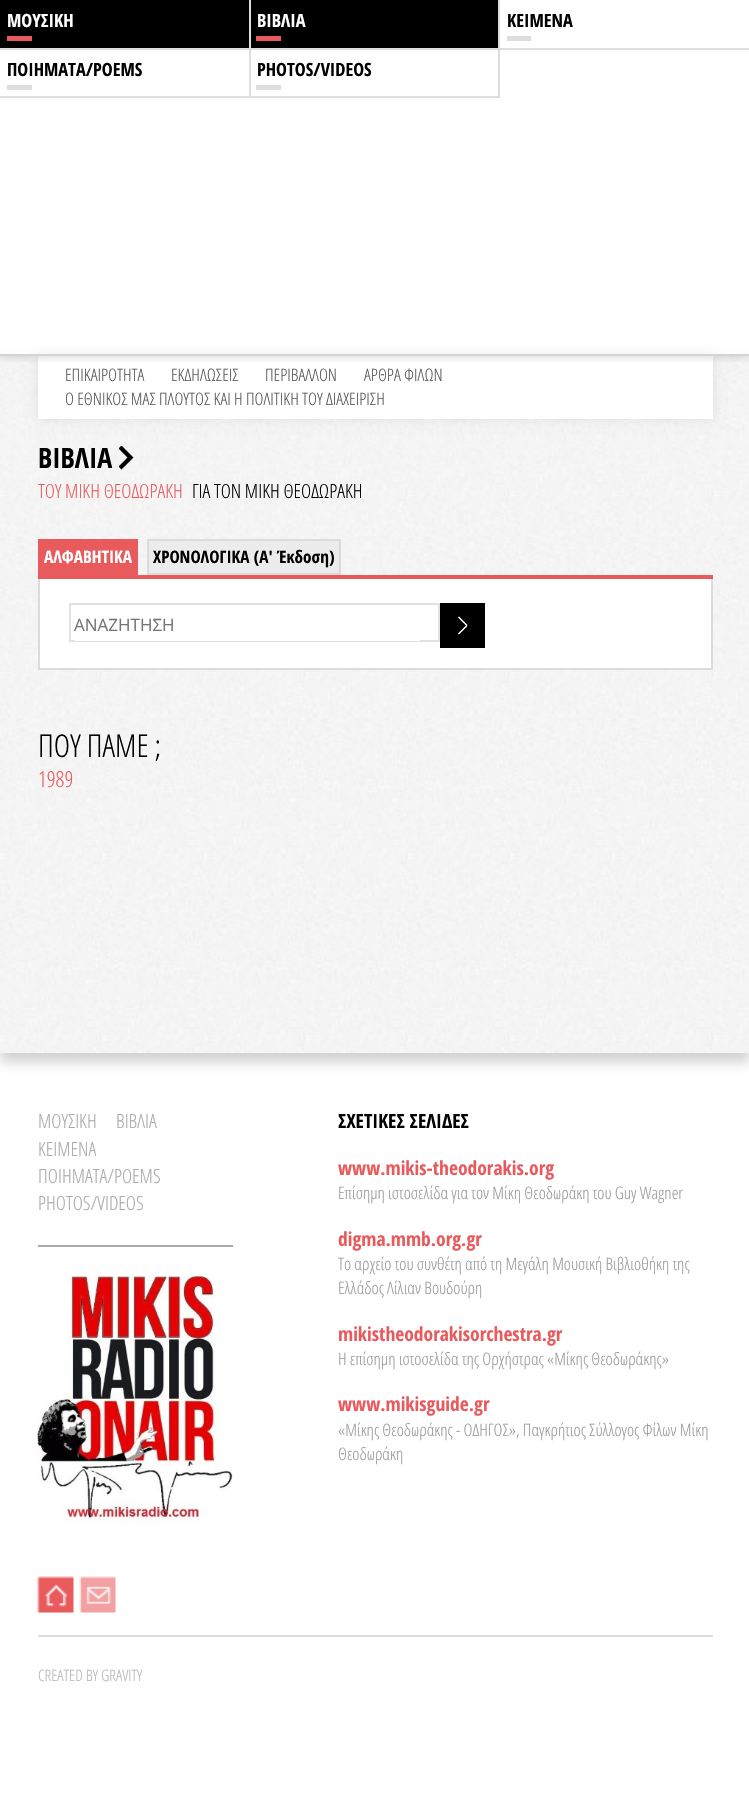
void draw(SkCanvas* c) {
SkPaint p;
p.setAntiAlias(true);
auto F=[&](const char* family, int weight, float size, bool italic = false){SkFontStyle style(weight, SkFontStyle::kNormal_Width,italic ? SkFontStyle::kItalic_Slant : SkFontStyle::kUpright_Slant);SkFont result(fontMgr->matchFamilyStyle(family, style), size);result.setSubpixel(true);return result;};
auto T=[&](const char* s, float x, float y, const SkFont& font){c->drawString(s, x, y, font, p);};
auto R=[&](float x, float y, float w, float h){c->drawRect(SkRect::MakeXYWH(x, y, w, h), p);};
auto I=[&](const char* path, float x, float y, float w, float h){auto image = SkImages::DeferredFromEncodedData(SkData::MakeFromFileName(path));c->drawImageRect(image, SkRect::MakeXYWH(x, y, w, h), SkSamplingOptions());};
auto P=[&](const char* data, bool evenOdd = false){SkPath result = *SkParsePath::FromSVGString(data);if (evenOdd) result.setFillType(SkPathFillType::kEvenOdd);return result;};
c->clear(0xffffffff);
p.setColor(0x2e000000);
p.setMaskFilter(SkMaskFilter::MakeBlur(kNormal_SkBlurStyle, 6));
c->drawRect(SkRect::MakeXYWH(0,365,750,697),p);
p.setMaskFilter(nullptr);
I("1.png",0,356,749,697);
p.setColor(0x17020000);
p.setMaskFilter(SkMaskFilter::MakeBlur(kNormal_SkBlurStyle, 5));
c->drawRect(SkRect::MakeXYWH(38,356,675,63),p);
p.setMaskFilter(nullptr);
p.setColor(0xffffffff);
R(38,356,675,63);
c->save();
c->clipRect(SkRect::MakeXYWH(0,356,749,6));
p.setColor(0x2e020000);
p.setMaskFilter(SkMaskFilter::MakeBlur(kNormal_SkBlurStyle, 5));
c->drawRect(SkRect::MakeXYWH(0,98,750,258),p);
p.setMaskFilter(nullptr);
c->restore();
p.setColor(0xffffffff);
R(0,90,749,8);
p.setColor(0xffdddddd);
R(0,48,749,2);
p.setColor(0xff000000);
R(0,0,249,48);
p.setColor(0xffe95a5d);
R(7,36,25,5);
p.setColor(0xffdddddd);
R(249,0,2,48);
auto f1 = F("Open Sans Condensed",700,18.25);
p.setColor(0xffffffff);
T("ΜΟΥΣΙΚΗ",7,27,f1);
p.setColor(0xff000000);
R(251,0,247,48);
p.setColor(0xffe95a5d);
R(256,36,25,5);
p.setColor(0xffdddddd);
R(498,0,2,48);
p.setColor(0xffffffff);
T("ΒΙΒΛΙΑ",257,27,f1);
p.setColor(0xffdddddd);
R(507,36,24,5);
p.setColor(0xff000000);
T("ΚΕΙΜΕΝΑ",507,27,f1);
p.setColor(0xffdddddd);
R(0,96,500,2);
R(7,85,25,5);
R(249,50,2,46);
p.setColor(0xff000000);
T("ΠΟΙΗΜΑΤΑ/POEMS",7,76,f1);
p.setColor(0xffdddddd);
R(256,85,25,5);
R(498,50,2,46);
p.setColor(0xff000000);
T("PHOTOS/VIDEOS",257,76,f1);
p.setColor(0xffd4d4d4);
R(0,354,749,2);
auto f2 = F("Open Sans Condensed",300,17.2);
p.setColor(0xff575757);
T("ΕΠΙΚΑΙΡΟΤΗΤΑ",65,381,f2);
T("ΕΚΔΗΛΩΣΕΙΣ",171,381,f2);
T("ΠΕΡΙΒΑΛΛΟΝ",265,381,f2);
T("ΑΡΘΡΑ ΦΙΛΩΝ",364,381,f2);
T("Ο ΕΘΝΙΚΟΣ ΜΑΣ ΠΛΟΥΤΟΣ ΚΑΙ Η ΠΟΛΙΤΙΚΗ ΤΟΥ ΔΙΑΧΕΙΡΙΣΗ",65,405,f2);
c->save();
c->clipRect(SkRect::MakeXYWH(119,446,16,24));
p.setColor(0xff000000);
c->drawPath(P("M118.5 448.5l3-3l12 12l-12 12l-3-3l9-9z"),p);
c->restore();
auto f3 = F("Open Sans Condensed",700,28);
T("ΒΙΒΛΙΑ",38,468,f3);
auto f4 = F("Open Sans Condensed",300,19.5);
p.setColor(0xffe95a5d);
T("ΤΟΥ ΜΙΚΗ ΘΕΟΔΩΡΑΚΗ",38,498,f4);
p.setColor(0xff000000);
T("ΓΙΑ ΤΟΝ ΜΙΚΗ ΘΕΟΔΩΡΑΚΗ",192,498,f4);
p.setColor(0xffe95a5d);
R(38,575,675,4);
R(38,539,100,36);
auto f5 = F("Open Sans Condensed",700,17.2);
p.setColor(0xffffffff);
T("ΑΛΦΑΒΗΤΙΚΑ",44,563,f5);
p.setColor(0xffececec);
c->drawRect(SkRect::MakeXYWH(148,540,192,34),p);
p.setStroke(true);
p.setStrokeWidth(2);
p.setColor(0xffdbdbdb);
c->drawRect(SkRect::MakeXYWH(148,540,192,34),p);
p.setStroke(false);
p.setColor(0xff000000);
T("ΧΡΟΝΟΛΟΓΙΚΑ (Α' Έκδοση)",153,563,f5);
p.setColor(0xffffffff);
R(40,579,671,89);
p.setColor(0xffdbdbdb);
R(711,579,2,90);
R(38,668,675,2);
R(38,579,2,90);
p.setStroke(true);
p.setColor(0xffe1e1e1);
c->drawRect(SkRect::MakeXYWH(70,604,369,37),p);
p.setStroke(false);
p.setColor(0xffffffff);
R(75,640,345,1);
auto f6 = F("Open Sans",400,17);
p.setColor(0xff757575);
T("ΑΝΑΖΗΤΗΣΗ",74,631,f6);
p.setColor(0xff000000);
R(440,603,45,45);
p.setStroke(true);
p.setStrokeWidth(1.5);
p.setColor(0xffffffff);
c->drawPath(P("M458.5 617l8.5 8.5m-8.5 8.5l8.5-8.5"),p);
auto f7 = F("Open Sans Condensed",300,31.5);
p.setStroke(false);
p.setColor(0xff000000);
T("ΠΟΥ ΠΑΜΕ ;",38,757,f7);
auto f8 = F("Open Sans Condensed",300,22);
p.setColor(0xffe95a5d);
T("1989",38,787,f8);
p.setColor(0xffdddddd);
R(38,1635,675,2);
p.setColor(0xffaaaaaa);
R(38,1245,195,2);
T("ΜΟΥΣΙΚΗ",38,1128,f4);
T("ΒΙΒΛΙΑ",116,1128,f4);
T("ΚΕΙΜΕΝΑ",38,1156,f4);
T("ΠΟΙΗΜΑΤΑ/POEMS",38,1183,f4);
T("PHOTOS/VIDEOS",38,1210,f4);
I("2.png",37,1276,196,248);
auto f9 = F("Open Sans Condensed",700,19.5);
p.setColor(0xff000000);
T("ΣΧΕΤΙΚΕΣ ΣΕΛΙΔΕΣ",338,1128,f9);
p.setColor(0xffe95a5d);
T("www.mikis-theodorakis.org",338,1175,f9);
p.setColor(0xff9a9a9a);
T("Επίσημη ιστοσελίδα για τον Μίκη Θεοδωράκη του Guy Wagner",338,1199,f2);
p.setColor(0xffe95a5d);
T("digma.mmb.org.gr",338,1246,f9);
p.setColor(0xff9a9a9a);
T("Το αρχείο του συνθέτη από τη Μεγάλη Μουσική Βιβλιοθήκη της",338,1270,f2);
T("Ελλάδος Λίλιαν Βουδούρη",338,1294,f2);
p.setColor(0xffe95a5d);
T("mikistheodorakisorchestra.gr",338,1341,f9);
p.setColor(0xff9a9a9a);
T("Η επίσημη ιστοσελίδα της Ορχήστρας «Μίκης Θεοδωράκης»",338,1365,f2);
p.setColor(0xffe95a5d);
T("www.mikisguide.gr",338,1411,f9);
p.setColor(0xff9a9a9a);
T("«Μίκης Θεοδωράκης - ΟΔΗΓΟΣ», Παγκρήτιος Σύλλογος Φίλων Μίκη",338,1436,f2);
T("Θεοδωράκη",338,1460,f2);
I("3.png",37,1576,37,37);
I("4.png",79,1576,37,37);
auto f10 = F("Open Sans Condensed",300,15.75);
p.setColor(0xffb6b6b6);
T("CREATED BY GRAVITY",38,1681,f10);
}
